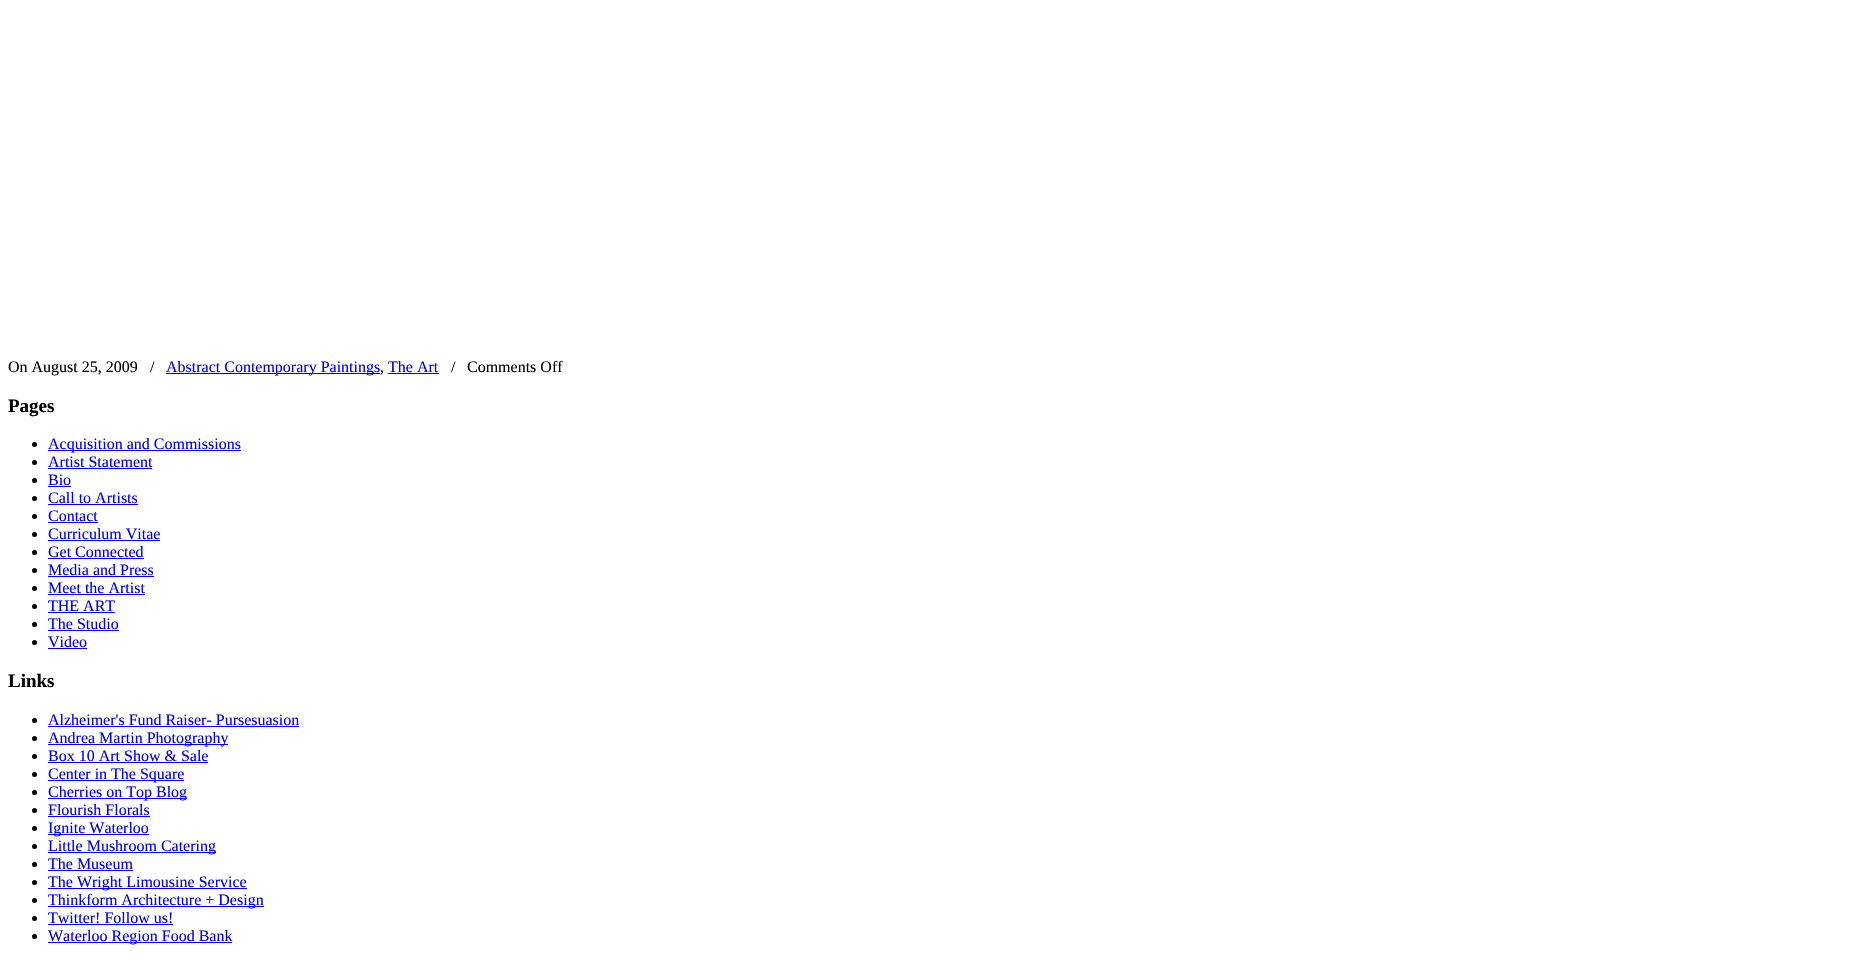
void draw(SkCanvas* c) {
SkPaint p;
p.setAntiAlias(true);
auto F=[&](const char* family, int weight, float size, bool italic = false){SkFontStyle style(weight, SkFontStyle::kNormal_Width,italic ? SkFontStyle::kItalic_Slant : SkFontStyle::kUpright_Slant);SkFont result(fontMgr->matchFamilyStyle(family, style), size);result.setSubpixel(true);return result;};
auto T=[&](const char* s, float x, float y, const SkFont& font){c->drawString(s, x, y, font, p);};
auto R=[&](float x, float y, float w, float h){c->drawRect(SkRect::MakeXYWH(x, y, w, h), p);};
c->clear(0xffffffff);
auto f1 = F("Liberation Serif",400,16);
p.setColor(0xff000000);
T("On August 25, 2009",8,372,f1);
T("/",150,372,f1);
p.setColor(0xff0000ee);
R(166,373,214,1);
T("Abstract Contemporary Paintings",166,372,f1);
p.setColor(0xff000000);
T(",",380,372,f1);
p.setColor(0xff0000ee);
R(388,373,51,1);
T("The Art",388,372,f1);
p.setColor(0xff000000);
T("/",451,372,f1);
T("Comments Off",467,372,f1);
auto f2 = F("Liberation Serif",700,19);
T("Pages",8,412,f2);
c->drawCircle(34.5,444.5,2.5,p);
p.setColor(0xff0000ee);
R(48,450,193,1);
T("Acquisition and Commissions",48,449,f1);
p.setColor(0xff000000);
c->drawCircle(34.5,462.5,2.5,p);
p.setColor(0xff0000ee);
T("Artist Statement",48,467,f1);
R(48,468,104,1);
p.setColor(0xff000000);
c->drawCircle(34.5,480.5,2.5,p);
p.setColor(0xff0000ee);
T("Bio",48,485,f1);
R(48,486,23,1);
p.setColor(0xff000000);
c->drawCircle(34.5,498.5,2.5,p);
p.setColor(0xff0000ee);
T("Call to Artists",48,503,f1);
R(48,504,90,1);
p.setColor(0xff000000);
c->drawCircle(34.5,516.5,2.5,p);
p.setColor(0xff0000ee);
T("Contact",48,521,f1);
R(48,522,50,1);
p.setColor(0xff000000);
c->drawCircle(34.5,534.5,2.5,p);
p.setColor(0xff0000ee);
T("Curriculum Vitae",48,539,f1);
R(48,540,112,1);
p.setColor(0xff000000);
c->drawCircle(34.5,552.5,2.5,p);
p.setColor(0xff0000ee);
T("Get Connected",48,557,f1);
R(48,558,96,1);
p.setColor(0xff000000);
c->drawCircle(34.5,570.5,2.5,p);
p.setColor(0xff0000ee);
T("Media and Press",48,575,f1);
R(48,576,106,1);
p.setColor(0xff000000);
c->drawCircle(34.5,588.5,2.5,p);
p.setColor(0xff0000ee);
T("Meet the Artist",48,593,f1);
R(48,594,97,1);
p.setColor(0xff000000);
c->drawCircle(34.5,606.5,2.5,p);
p.setColor(0xff0000ee);
T("THE ART",48,611,f1);
R(48,612,67,1);
p.setColor(0xff000000);
c->drawCircle(34.5,624.5,2.5,p);
p.setColor(0xff0000ee);
T("The Studio",48,629,f1);
R(48,630,71,1);
p.setColor(0xff000000);
c->drawCircle(34.5,642.5,2.5,p);
p.setColor(0xff0000ee);
T("Video",48,647,f1);
R(48,648,39,1);
p.setColor(0xff000000);
T("Links",8,687,f2);
c->drawCircle(34.5,720.5,2.5,p);
p.setColor(0xff0000ee);
T("Alzheimer's Fund Raiser- Pursesuasion",48,725,f1);
R(48,726,251,1);
p.setColor(0xff000000);
c->drawCircle(34.5,738.5,2.5,p);
p.setColor(0xff0000ee);
R(48,744,180,1);
T("Andrea Martin Photography",48,743,f1);
p.setColor(0xff000000);
c->drawCircle(34.5,756.5,2.5,p);
p.setColor(0xff0000ee);
T("Box 10 Art Show & Sale",48,761,f1);
R(48,762,160,1);
p.setColor(0xff000000);
c->drawCircle(34.5,774.5,2.5,p);
p.setColor(0xff0000ee);
R(48,780,136,1);
T("Center in The Square",48,779,f1);
p.setColor(0xff000000);
c->drawCircle(34.5,792.5,2.5,p);
p.setColor(0xff0000ee);
R(48,798,139,1);
T("Cherries on Top Blog",48,797,f1);
p.setColor(0xff000000);
c->drawCircle(34.5,810.5,2.5,p);
p.setColor(0xff0000ee);
T("Flourish Florals",48,815,f1);
R(48,816,102,1);
p.setColor(0xff000000);
c->drawCircle(34.5,828.5,2.5,p);
p.setColor(0xff0000ee);
R(48,834,101,1);
T("Ignite Waterloo",48,833,f1);
p.setColor(0xff000000);
c->drawCircle(34.5,846.5,2.5,p);
p.setColor(0xff0000ee);
R(48,852,168,1);
T("Little Mushroom Catering",48,851,f1);
p.setColor(0xff000000);
c->drawCircle(34.5,864.5,2.5,p);
p.setColor(0xff0000ee);
T("The Museum",48,869,f1);
R(48,870,85,1);
p.setColor(0xff000000);
c->drawCircle(34.5,882.5,2.5,p);
p.setColor(0xff0000ee);
R(48,888,199,1);
T("The Wright Limousine Service",48,887,f1);
p.setColor(0xff000000);
c->drawCircle(34.5,900.5,2.5,p);
p.setColor(0xff0000ee);
R(48,906,216,1);
T("Thinkform Architecture + Design",48,905,f1);
p.setColor(0xff000000);
c->drawCircle(34.5,918.5,2.5,p);
p.setColor(0xff0000ee);
T("Twitter! Follow us!",48,923,f1);
R(48,924,125,1);
p.setColor(0xff000000);
c->drawCircle(34.5,936.5,2.5,p);
p.setColor(0xff0000ee);
R(48,942,184,1);
T("Waterloo Region Food Bank",48,941,f1);
}
